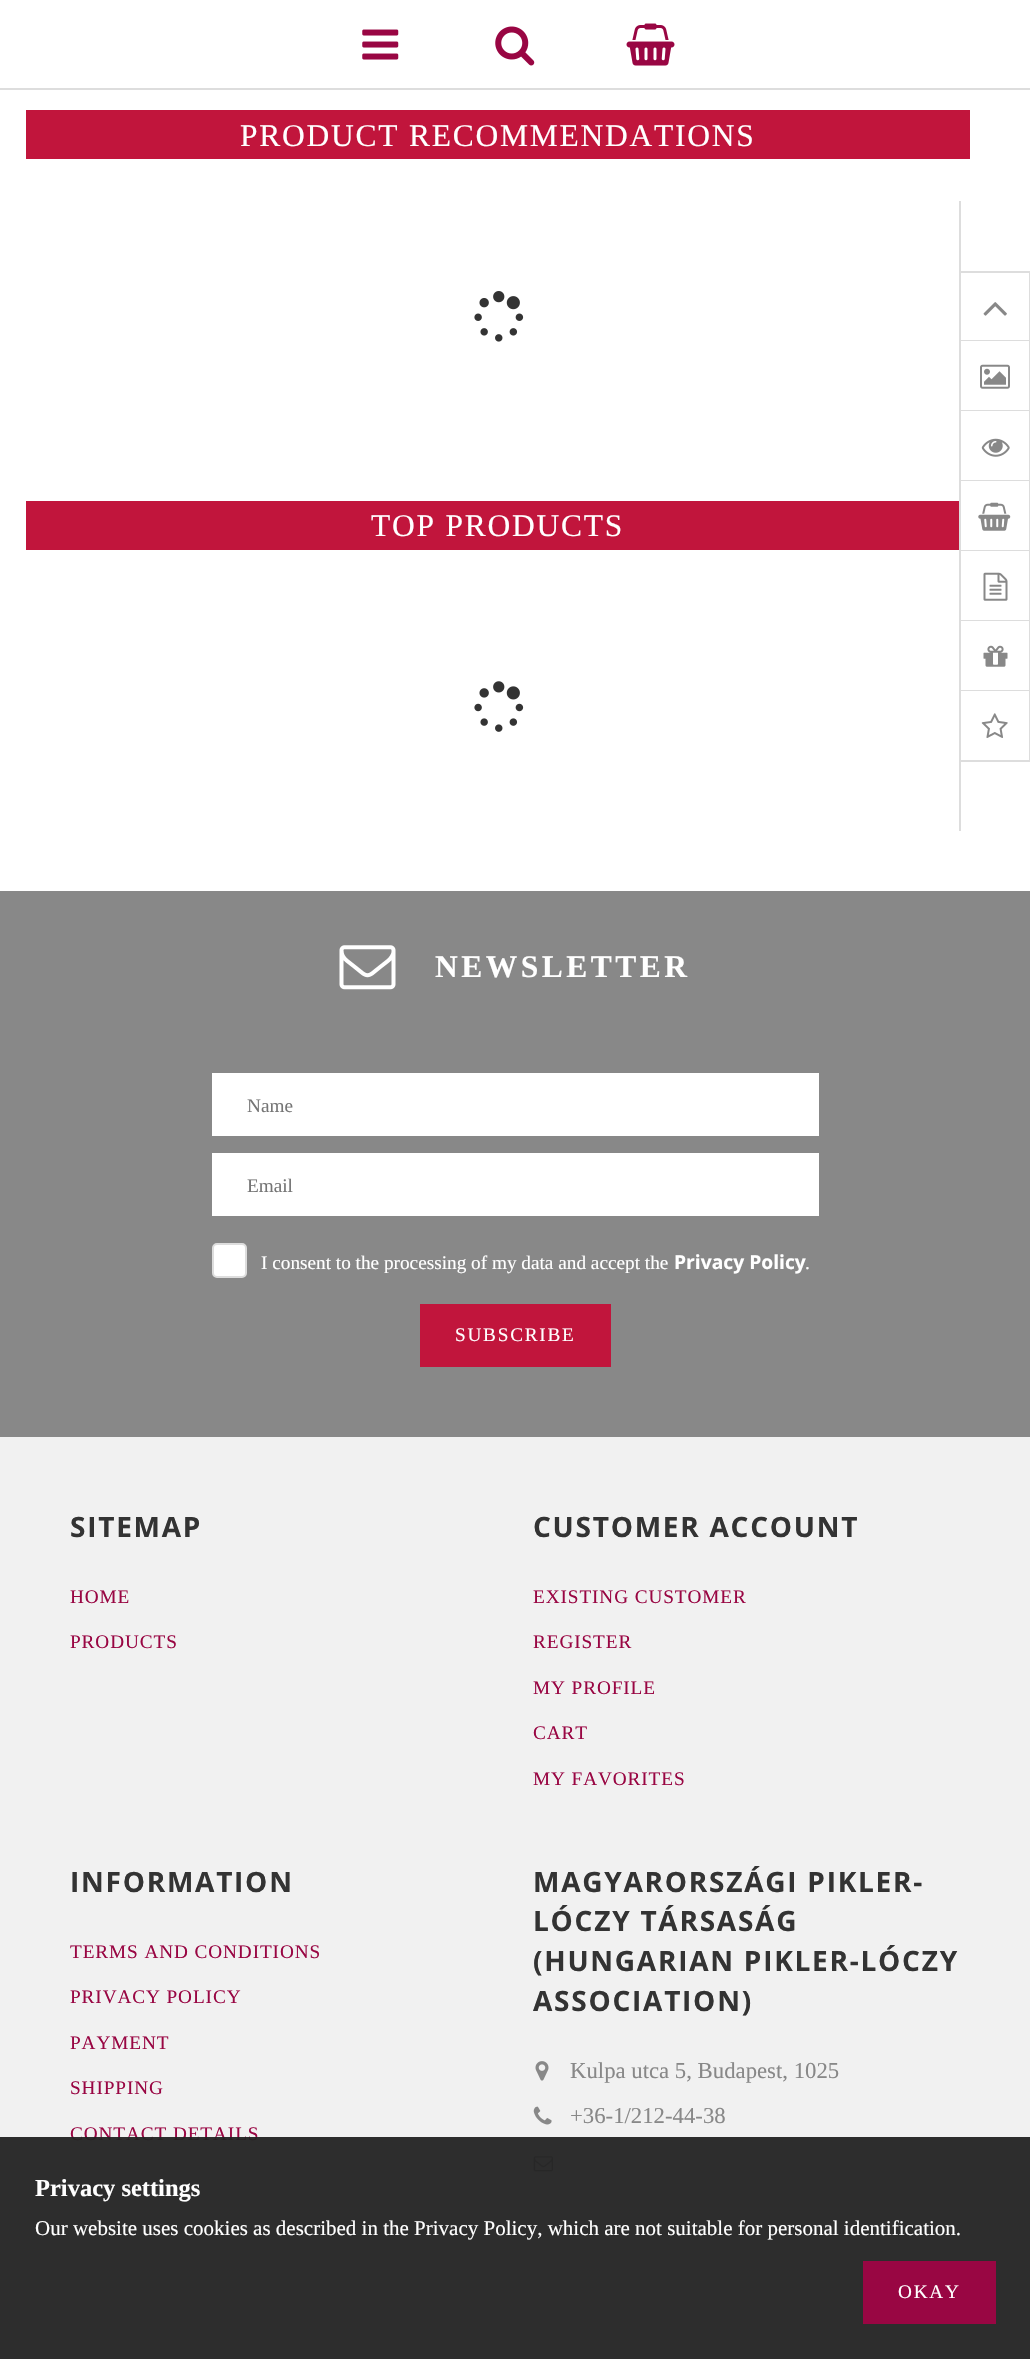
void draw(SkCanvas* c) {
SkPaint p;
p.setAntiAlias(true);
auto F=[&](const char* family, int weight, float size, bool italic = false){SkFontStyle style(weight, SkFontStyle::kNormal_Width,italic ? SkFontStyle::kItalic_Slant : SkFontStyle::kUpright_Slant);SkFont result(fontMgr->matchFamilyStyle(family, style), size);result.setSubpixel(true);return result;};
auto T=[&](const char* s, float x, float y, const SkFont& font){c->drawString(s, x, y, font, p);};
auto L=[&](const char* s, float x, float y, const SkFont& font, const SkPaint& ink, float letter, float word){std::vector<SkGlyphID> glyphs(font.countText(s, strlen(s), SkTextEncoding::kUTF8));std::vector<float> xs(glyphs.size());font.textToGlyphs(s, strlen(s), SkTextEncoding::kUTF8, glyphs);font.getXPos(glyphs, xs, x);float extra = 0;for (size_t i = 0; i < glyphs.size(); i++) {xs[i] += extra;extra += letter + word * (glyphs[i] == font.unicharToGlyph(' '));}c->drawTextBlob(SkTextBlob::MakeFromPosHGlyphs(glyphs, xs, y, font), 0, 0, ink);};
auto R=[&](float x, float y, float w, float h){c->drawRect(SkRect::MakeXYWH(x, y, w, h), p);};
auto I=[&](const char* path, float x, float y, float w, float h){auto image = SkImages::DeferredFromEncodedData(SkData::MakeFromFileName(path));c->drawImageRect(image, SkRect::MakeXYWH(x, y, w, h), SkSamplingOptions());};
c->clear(0xffffffff);
p.setColor(0xffdddddd);
R(0,88,1030,2);
I("1.png",362,29,37,31);
I("2.png",495,26,40,40);
I("3.png",626,23,49,43);
p.setColor(0xffc1153c);
R(26,110,944,49);
auto f1 = F("Liberation Serif",400,31.5);
p.setColor(0xffffffff);
L("PRODUCT RECOMMENDATIONS",240,146,f1,p,1.75,0);
I("4.png",474,291,50,51);
p.setColor(0xffc1153c);
R(26,501,933,49);
p.setColor(0xffffffff);
L("TOP PRODUCTS",371,536,f1,p,1.75,0);
I("5.png",474,681,50,51);
p.setColor(0xffdddddd);
R(959,201,2,630);
R(961,271,69,2);
R(1029,271,1,490);
R(961,340,69,1);
I("6.png",983,302,24,14);
R(961,410,69,1);
I("7.png",980,364,30,25);
R(961,480,69,1);
I("8.png",981,438,29,19);
R(961,550,69,1);
I("9.png",978,502,33,29);
R(961,620,69,1);
I("10.png",983,572,25,29);
R(961,690,69,1);
I("11.png",983,645,25,22);
R(961,760,69,2);
I("12.png",981,713,27,25);
p.setColor(0xff888888);
R(0,891,1030,546);
I("13.png",339,945,57,45);
auto f2 = F("Liberation Serif",700,31.5);
p.setColor(0xffffffff);
L("NEWSLETTER",435,977,f2,p,3.5,0);
R(212,1073,607,63);
auto f3 = F("Liberation Serif",400,19.25);
p.setColor(0xff757575);
T("Name",247,1112,f3);
p.setColor(0xffffffff);
R(212,1153,607,63);
p.setColor(0xff757575);
T("Email",247,1192,f3);
p.setColor(0xffffffff);
c->drawRoundRect(SkRect::MakeXYWH(213,1244,33,33),4,4,p);
p.setStroke(true);
p.setStrokeWidth(2);
p.setColor(0xffdddddd);
c->drawRoundRect(SkRect::MakeXYWH(213,1244,33,33),4,4,p);
p.setStroke(false);
p.setColor(0xffffffff);
T("I consent to the processing of my data and accept the",261,1269,f3);
auto f4 = F("Open Sans",700,19.25);
T("Privacy Policy",674,1269,f4);
T(".",805,1269,f3);
p.setColor(0xffc1153c);
R(420,1304,191,63);
p.setColor(0xffffffff);
L("SUBSCRIBE",455,1341,f3,p,1.75,0);
p.setColor(0xfff1f1f1);
R(0,1437,1030,870);
auto f5 = F("Open Sans",700,28);
p.setColor(0xff333333);
L("SITEMAP",70,1537,f5,p,1.75,0);
p.setColor(0xff990643);
L("HOME",70,1603,f3,p,.9,0);
L("PRODUCTS",70,1648,f3,p,.9,0);
p.setColor(0xff333333);
L("CUSTOMER ACCOUNT",533,1537,f5,p,1.75,0);
p.setColor(0xff990643);
L("EXISTING CUSTOMER",533,1603,f3,p,.9,0);
L("REGISTER",533,1648,f3,p,.9,0);
L("MY PROFILE",533,1694,f3,p,.9,0);
L("CART",533,1739,f3,p,.9,0);
L("MY FAVORITES",533,1785,f3,p,.9,0);
p.setColor(0xff333333);
L("INFORMATION",70,1892,f5,p,1.75,0);
p.setColor(0xff990643);
L("TERMS AND CONDITIONS",70,1958,f3,p,.9,0);
L("PRIVACY POLICY",70,2003,f3,p,.9,0);
L("PAYMENT",70,2049,f3,p,.9,0);
L("SHIPPING",70,2094,f3,p,.9,0);
L("CONTACT DETAILS",70,2140,f3,p,.9,0);
p.setColor(0xff333333);
L("MAGYARORSZÁGI PIKLER-",533,1892,f5,p,1.75,0);
L("LÓCZY TÁRSASÁG",533,1931,f5,p,1.75,0);
L("(HUNGARIAN PIKLER-LÓCZY",533,1971,f5,p,1.75,0);
L("ASSOCIATION)",533,2011,f5,p,1.75,0);
I("14.png",535,2061,14,20);
auto f6 = F("Liberation Serif",400,22.75);
p.setColor(0xff888888);
T("Kulpa utca 5, Budapest, 1025",570,2078,f6);
I("15.png",533,2106,19,19);
T("+36-1/212-44-38",570,2123,f6);
I("16.png",533,2156,20,16);
p.setColor(0xf2222222);
R(0,2137,1030,222);
auto f7 = F("Liberation Serif",700,24.5);
p.setColor(0xffffffff);
T("Privacy settings",35,2196,f7);
auto f8 = F("Liberation Serif",400,21);
T("Our website uses cookies as described in the Privacy Policy, which are not suitable for personal identification.",35,2235,f8);
p.setColor(0xff990643);
R(863,2261,133,63);
p.setColor(0xffffffff);
L("OKAY",898,2298,f3,p,1.75,0);
}
